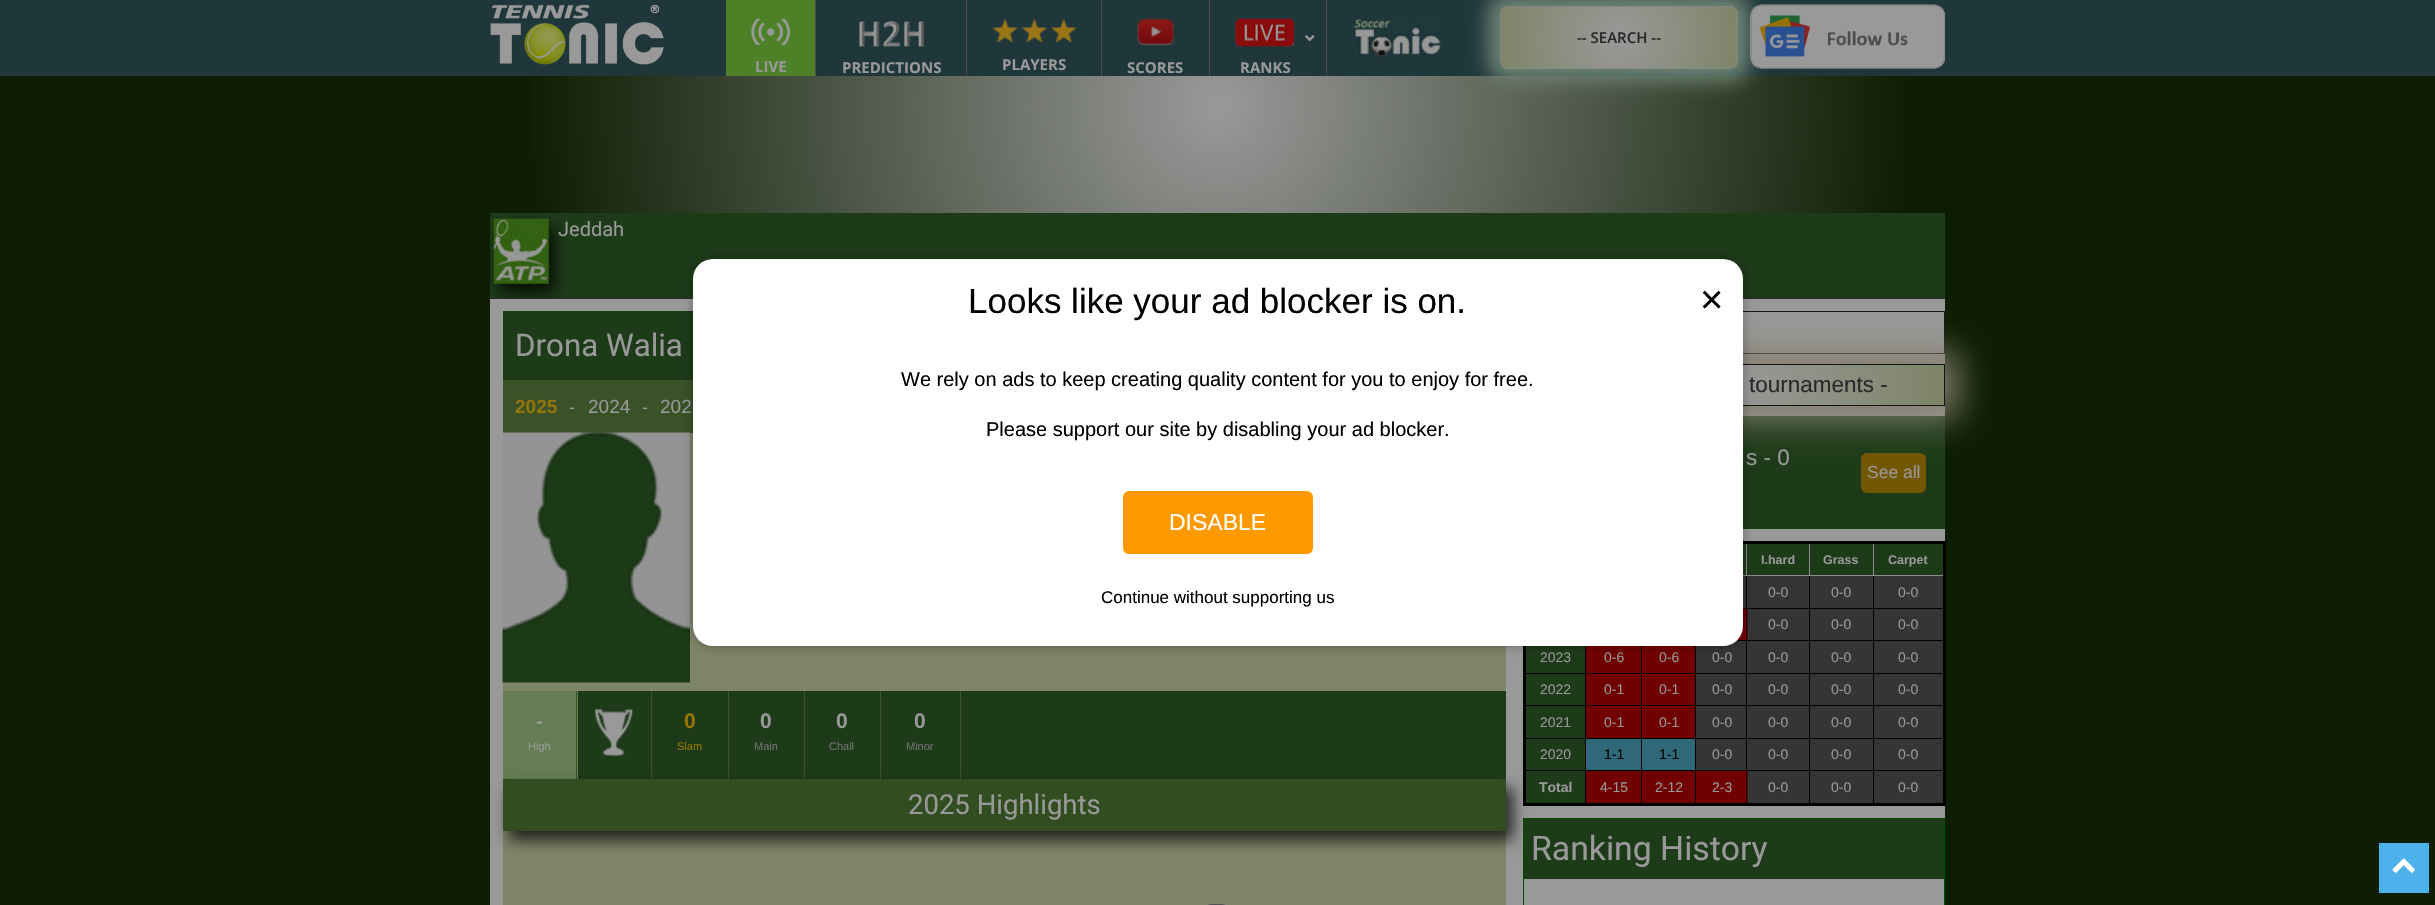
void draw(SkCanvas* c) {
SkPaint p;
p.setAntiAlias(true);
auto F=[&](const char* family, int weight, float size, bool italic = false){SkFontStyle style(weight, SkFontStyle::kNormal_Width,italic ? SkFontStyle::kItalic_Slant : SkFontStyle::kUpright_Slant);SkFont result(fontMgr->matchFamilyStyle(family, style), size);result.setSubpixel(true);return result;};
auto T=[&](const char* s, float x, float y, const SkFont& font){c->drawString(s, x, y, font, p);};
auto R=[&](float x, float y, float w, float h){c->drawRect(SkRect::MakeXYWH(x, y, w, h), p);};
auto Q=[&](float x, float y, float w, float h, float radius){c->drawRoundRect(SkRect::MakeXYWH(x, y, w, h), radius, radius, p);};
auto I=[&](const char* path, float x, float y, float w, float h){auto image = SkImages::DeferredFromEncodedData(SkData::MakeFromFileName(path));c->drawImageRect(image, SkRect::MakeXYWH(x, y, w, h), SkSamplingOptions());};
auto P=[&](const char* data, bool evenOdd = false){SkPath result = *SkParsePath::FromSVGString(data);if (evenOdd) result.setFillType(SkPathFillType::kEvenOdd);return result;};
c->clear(0xff0c1d01);
p.setColor(0xff1f373b);
R(0,0,2435,76);
I("1.png",490,4,174,61);
p.setColor(0xff1d3b19);
R(490,213,1455,85);
p.setColor(0xff292929);
R(490,298,1455,1);
p.setColor(0xff999999);
R(490,299,1455,606);
c->save();
c->clipRect(SkRect::MakeXYWH(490,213,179,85));
p.setColor(0xbf000000);
p.setMaskFilter(SkMaskFilter::MakeBlur(kNormal_SkBlurStyle, 7));
c->drawRect(SkRect::MakeXYWH(500,228,55,65),p);
p.setMaskFilter(nullptr);
c->restore();
{
const SkColor colors[] = {0xff999999,0xff0c1d01};
const float stops[] = {0,.95};
p.setShader(SkGradientShader::MakeRadial({1218,106}, 735, colors, stops, 2, SkTileMode::kClamp));
p.setAlpha(255);
}
R(530,76,1376,137);
p.setShader(nullptr);
p.setColor(0xff6e8574);
p.setMaskFilter(SkMaskFilter::MakeBlur(kNormal_SkBlurStyle, 10));
c->drawRoundRect(SkRect::MakeXYWH(1488,-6,262,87),20,20,p);
p.setMaskFilter(nullptr);
c->save();
c->clipPath(P("M1508 6h222c4.5 0 8 3.5 8 8v47c0 4.5-3.5 8-8 8h-222c-4.5 0-8-3.5-8-8v-47c0-4.5 3.5-8 8-8z"),true);
{
const SkColor colors[] = {0xff999999,0xff7e8568};
const float stops[] = {0,1};
p.setShader(SkGradientShader::MakeRadial({1619,-22}, 121, colors, stops, 2, SkTileMode::kClamp));
p.setAlpha(255);
}
R(1501,6,235,2);
{
const SkColor colors[] = {0xff999999,0xff7e8568};
const float stops[] = {0,1};
p.setShader(SkGradientShader::MakeRadial({1619,38}, 121, colors, stops, 2, SkTileMode::kClamp));
p.setAlpha(255);
}
R(1501,8,235,60);
{
const SkColor colors[] = {0xff999999,0xff7e8568};
const float stops[] = {0,1};
p.setShader(SkGradientShader::MakeRadial({1854,38}, 121, colors, stops, 2, SkTileMode::kClamp));
p.setAlpha(255);
}
R(1736,8,2,60);
c->restore();
p.setStroke(true);
p.setStrokeWidth(1);
p.setShader(nullptr);
p.setColor(0xff878787);
c->drawRoundRect(SkRect::MakeXYWH(1500.5,6.5,237,62),7.5,7.5,p);
auto f1 = F("Open Sans",600,15);
p.setStroke(false);
p.setColor(0xff292929);
T("-- SEARCH --",1577,43,f1);
I("2.png",1750,4,195,65);
p.setColor(0xff4d8128);
R(726,0,89,76);
I("3.png",751,18,39,27);
auto f2 = F("Open Sans",700,15);
p.setColor(0xff999999);
T("LIVE",755,72,f2);
p.setColor(0xff4d4d4d);
R(815,0,1,76);
I("4.png",859,21,65,26);
p.setColor(0xff999999);
T("PREDICTIONS",842,73,f2);
p.setColor(0xff4d4d4d);
R(966,0,1,76);
I("5.png",992,18,85,25);
p.setColor(0xff999999);
T("PLAYERS",1002,70,f2);
p.setColor(0xff4d4d4d);
R(1101,0,1,76);
I("6.png",1137,18,37,28);
p.setColor(0xff999999);
T("SCORES",1127,73,f2);
p.setColor(0xff4d4d4d);
R(1209,0,1,76);
I("7.png",1235,18,59,29);
I("8.png",1305,35,10,7);
p.setColor(0xff999999);
T("RANKS",1240,73,f2);
p.setColor(0xff4d4d4d);
R(1326,0,1,76);
I("9.png",1352,18,89,39);
I("10.png",493,218,56,66);
auto f3 = F("Roboto",400,20);
p.setColor(0xff999999);
T("Jeddah",558,236,f3);
p.setColor(0xff7e8568);
R(503,433,1003,472);
p.setColor(0xff1d3b19);
R(503,311,190,69);
auto f4 = F("Roboto",400,31.25);
p.setColor(0xff999999);
T("Drona Walia",515,356,f4);
p.setColor(0xff395228);
R(503,380,190,53);
auto f5 = F("Liberation Sans",700,19);
p.setColor(0xff95730b);
T("2025",515,413,f5);
auto f6 = F("Liberation Sans",400,17.5);
p.setColor(0xff999999);
T("-",569,413,f6);
auto f7 = F("Liberation Sans",400,19);
T("2024",588,413,f7);
T("-",642,413,f6);
T("202",660,413,f7);
I("11.png",502,432,188,251);
p.setColor(0xff1d3b19);
R(578,691,928,88);
p.setColor(0xff657d55);
R(503,691,75,88);
p.setColor(0xff395228);
R(576,691,1,88);
auto f8 = F("Liberation Sans",700,21);
p.setColor(0xff999999);
T("-",536,728,f8);
auto f9 = F("Liberation Sans",400,11);
T("High",528,750,f9);
p.setColor(0xff395228);
R(651,691,1,88);
I("12.png",594,708,40,49);
R(728,691,1,88);
p.setColor(0xff997600);
T("0",684,728,f8);
T("Slam",677,750,f9);
p.setColor(0xff395228);
R(804,691,1,88);
p.setColor(0xff999999);
T("0",760,728,f8);
p.setColor(0xff747373);
T("Main",754,750,f9);
p.setColor(0xff395228);
R(880,691,1,88);
p.setColor(0xff999999);
T("0",836,728,f8);
p.setColor(0xff747373);
T("Chall",829,750,f9);
p.setColor(0xff395228);
R(960,691,1,88);
p.setColor(0xff999999);
T("0",914,728,f8);
p.setColor(0xff747373);
T("Minor",906,750,f9);
p.setColor(0xbf000000);
p.setMaskFilter(SkMaskFilter::MakeBlur(kNormal_SkBlurStyle, 7));
c->drawRect(SkRect::MakeXYWH(509,788,1004,52),p);
p.setMaskFilter(nullptr);
p.setColor(0xff324e20);
R(503,779,1003,52);
auto f10 = F("Roboto",400,27.5);
p.setColor(0xff999999);
T("2025 Highlights",908,814,f10);
p.setStroke(true);
p.setColor(0xff141414);
c->drawRect(SkRect::MakeXYWH(1523.5,311.5,421,42),p);
p.setStroke(false);
p.setColor(0xff1d3b19);
R(1743,416,202,113);
p.setColor(0xff735600);
Q(1861,453,65,40,6);
p.setColor(0xff857f6e);
p.setMaskFilter(SkMaskFilter::MakeBlur(kNormal_SkBlurStyle, 18));
c->drawRect(SkRect::MakeXYWH(1510,351,448,68),p);
p.setMaskFilter(nullptr);
{
const SkColor colors[] = {0xff999999,0xff7e8568};
const float stops[] = {0,1};
p.setShader(SkGradientShader::MakeRadial({1734,385}, 211, colors, stops, 2, SkTileMode::kClamp));
p.setAlpha(255);
}
R(1743,365,201,40);
p.setStroke(true);
p.setShader(nullptr);
p.setColor(0xff141414);
c->drawRect(SkRect::MakeXYWH(1523.5,364.5,421,41),p);
auto f11 = F("Liberation Sans",400,22.5);
p.setStroke(false);
p.setColor(0xff292929);
T("tournaments -",1749,392,f11);
p.setColor(0xff999999);
T("s - 0",1746,465,f11);
T("See all",1867,478,f6);
p.setColor(0xff1d3b19);
R(1526,544,417,259);
p.setColor(0xff000000);
R(1873,608,72,1);
R(1873,640,72,1);
R(1873,673,72,1);
R(1873,705,72,1);
R(1873,738,72,1);
R(1873,770,72,1);
R(1873,770,1,35);
R(1809,770,65,1);
R(1873,738,1,33);
R(1809,738,65,1);
R(1873,705,1,34);
R(1809,705,65,1);
R(1873,673,1,33);
R(1809,673,65,1);
R(1873,640,1,34);
R(1809,640,65,1);
R(1873,608,1,33);
R(1809,608,65,1);
R(1873,575,1,34);
p.setColor(0xff8e8e8e);
R(1873,575,72,1);
R(1873,543,1,33);
p.setColor(0xff000000);
R(1809,770,1,35);
R(1746,770,64,1);
R(1809,738,1,33);
R(1746,738,64,1);
R(1809,705,1,34);
R(1746,705,64,1);
R(1809,673,1,33);
R(1746,673,64,1);
R(1809,640,1,34);
R(1746,640,64,1);
R(1809,608,1,33);
R(1746,608,64,1);
R(1809,575,1,34);
p.setColor(0xff8e8e8e);
R(1809,575,65,1);
R(1809,543,1,33);
p.setColor(0xff353535);
R(1743,576,66,32);
p.setColor(0xff710101);
R(1737,609,11,31);
p.setColor(0xff353535);
R(1696,641,113,32);
R(1696,674,113,31);
R(1696,706,113,32);
R(1696,739,113,31);
p.setColor(0xff710101);
R(1696,771,52,32);
p.setColor(0xff000000);
R(1746,770,1,35);
R(1695,770,53,1);
R(1746,738,1,33);
R(1695,738,53,1);
R(1746,705,1,34);
R(1695,705,53,1);
R(1746,673,1,33);
R(1695,673,53,1);
R(1746,640,1,34);
R(1736,640,12,1);
R(1746,608,1,33);
R(1743,608,5,1);
R(1746,575,1,34);
p.setColor(0xff8e8e8e);
R(1746,575,64,1);
R(1746,543,1,33);
p.setColor(0xff000000);
R(1743,541,202,3);
R(1943,541,3,264);
R(1695,770,1,35);
R(1641,770,55,1);
p.setColor(0xff710101);
R(1586,771,109,32);
p.setColor(0xff000000);
R(1641,770,1,35);
R(1585,770,58,1);
R(1585,770,1,35);
R(1523,803,422,3);
R(1695,738,1,33);
R(1641,738,55,1);
R(1695,705,1,34);
R(1641,705,55,1);
R(1695,673,1,33);
R(1641,673,55,1);
p.setColor(0xff710101);
R(1586,674,109,31);
R(1586,706,109,32);
p.setColor(0xff2e6879);
R(1586,739,109,31);
p.setColor(0xff000000);
R(1641,738,1,33);
R(1585,738,58,1);
R(1641,705,1,34);
R(1585,705,58,1);
R(1641,673,1,33);
R(1585,673,58,1);
R(1524,770,62,1);
R(1585,738,1,33);
R(1524,738,62,1);
R(1585,705,1,34);
R(1524,705,62,1);
R(1585,673,1,33);
R(1524,673,62,1);
R(1523,646,3,159);
auto f12 = F("Liberation Sans",700,12.5);
p.setColor(0xff999999);
T("I.hard",1761,564,f12);
T("Grass",1823,564,f12);
T("Carpet",1888,564,f12);
p.setColor(0xff8e8e8e);
R(1743,575,5,1);
auto f13 = F("Liberation Sans",400,14);
p.setColor(0xff999999);
T("0-0",1768,597,f13);
p.setColor(0xff353535);
R(1810,576,63,32);
p.setColor(0xff999999);
T("0-0",1831,597,f13);
p.setColor(0xff353535);
R(1874,576,69,32);
p.setColor(0xff999999);
T("0-0",1898,597,f13);
p.setColor(0xff353535);
R(1748,609,61,31);
p.setColor(0xff999999);
T("0-0",1768,629,f13);
p.setColor(0xff353535);
R(1810,609,63,31);
p.setColor(0xff999999);
T("0-0",1831,629,f13);
p.setColor(0xff353535);
R(1874,609,69,31);
p.setColor(0xff999999);
T("0-0",1898,629,f13);
T("2023",1540,662,f13);
p.setColor(0xff710101);
R(1586,646,109,27);
p.setColor(0xff000000);
R(1585,640,1,34);
p.setColor(0xff999999);
T("0-6",1604,662,f13);
p.setColor(0xff000000);
R(1641,640,1,34);
p.setColor(0xff999999);
T("0-6",1659,662,f13);
p.setColor(0xff000000);
R(1695,640,1,34);
p.setColor(0xff999999);
T("0-0",1712,662,f13);
T("0-0",1768,662,f13);
p.setColor(0xff353535);
R(1810,641,63,32);
p.setColor(0xff999999);
T("0-0",1831,662,f13);
p.setColor(0xff353535);
R(1874,641,69,32);
p.setColor(0xff999999);
T("0-0",1898,662,f13);
T("2022",1540,694,f13);
T("0-1",1604,694,f13);
T("0-1",1659,694,f13);
T("0-0",1712,694,f13);
T("0-0",1768,694,f13);
p.setColor(0xff353535);
R(1810,674,63,31);
p.setColor(0xff999999);
T("0-0",1831,694,f13);
p.setColor(0xff353535);
R(1874,674,69,31);
p.setColor(0xff999999);
T("0-0",1898,694,f13);
T("2021",1540,727,f13);
T("0-1",1604,727,f13);
T("0-1",1659,727,f13);
T("0-0",1712,727,f13);
T("0-0",1768,727,f13);
p.setColor(0xff353535);
R(1810,706,63,32);
p.setColor(0xff999999);
T("0-0",1831,727,f13);
p.setColor(0xff353535);
R(1874,706,69,32);
p.setColor(0xff999999);
T("0-0",1898,727,f13);
T("2020",1540,759,f13);
p.setColor(0xff000000);
T("1-1",1604,759,f13);
T("1-1",1659,759,f13);
p.setColor(0xff999999);
T("0-0",1712,759,f13);
T("0-0",1768,759,f13);
p.setColor(0xff353535);
R(1810,739,63,31);
p.setColor(0xff999999);
T("0-0",1831,759,f13);
p.setColor(0xff353535);
R(1874,739,69,31);
p.setColor(0xff999999);
T("0-0",1898,759,f13);
auto f14 = F("Liberation Sans",700,14);
T("Total",1539,792,f14);
T("4-15",1600,792,f13);
T("2-12",1655,792,f13);
T("2-3",1712,792,f13);
p.setColor(0xff353535);
R(1748,771,61,32);
p.setColor(0xff999999);
T("0-0",1768,792,f13);
p.setColor(0xff353535);
R(1810,771,63,32);
p.setColor(0xff999999);
T("0-0",1831,792,f13);
p.setColor(0xff353535);
R(1874,771,69,32);
p.setColor(0xff999999);
T("0-0",1898,792,f13);
p.setStroke(true);
p.setColor(0xff004d00);
c->drawRect(SkRect::MakeXYWH(1523.5,818.5,421,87),p);
p.setStroke(false);
p.setColor(0xff1d3b19);
R(1524,819,420,60);
auto f15 = F("Roboto",400,33.75);
p.setColor(0xff999999);
T("Ranking History",1531,860,f15);
p.setColor(0x4d000000);
p.setMaskFilter(SkMaskFilter::MakeBlur(kNormal_SkBlurStyle, 6));
c->drawRoundRect(SkRect::MakeXYWH(693,259,1050,387),20,20,p);
p.setMaskFilter(nullptr);
p.setColor(0xffffffff);
Q(693,259,1050,387,20);
auto f16 = F("Liberation Sans",400,35);
p.setColor(0xff000000);
T("Looks like your ad blocker is on.",968,313,f16);
auto f17 = F("Liberation Sans",400,40);
T("×",1700,313,f17);
auto f18 = F("Liberation Sans",400,20);
T("We rely on ads to keep creating quality content for you to enjoy for free.",901,386,f18);
T("Please support our site by disabling your ad blocker.",986,436,f18);
p.setColor(0xffff9900);
Q(1123,491,190,63,6);
auto f19 = F("Liberation Sans",400,23);
p.setColor(0xffffffff);
T("DISABLE",1169,530,f19);
auto f20 = F("Liberation Sans",400,17);
p.setColor(0xff000000);
T("Continue without supporting us",1101,603,f20);
p.setColor(0xff4db2ec);
R(2379,843,50,50);
I("13.png",2392,858,23,15);
p.setStroke(true);
p.setColor(0xff8f9189);
c->drawRoundRect(SkRect::MakeXYWH(1203.5,904.5,26,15),13,13,p);
p.setColor(0xff525252);
c->drawRoundRect(SkRect::MakeXYWH(1203.5,904.5,26,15),13,13,p);
}
